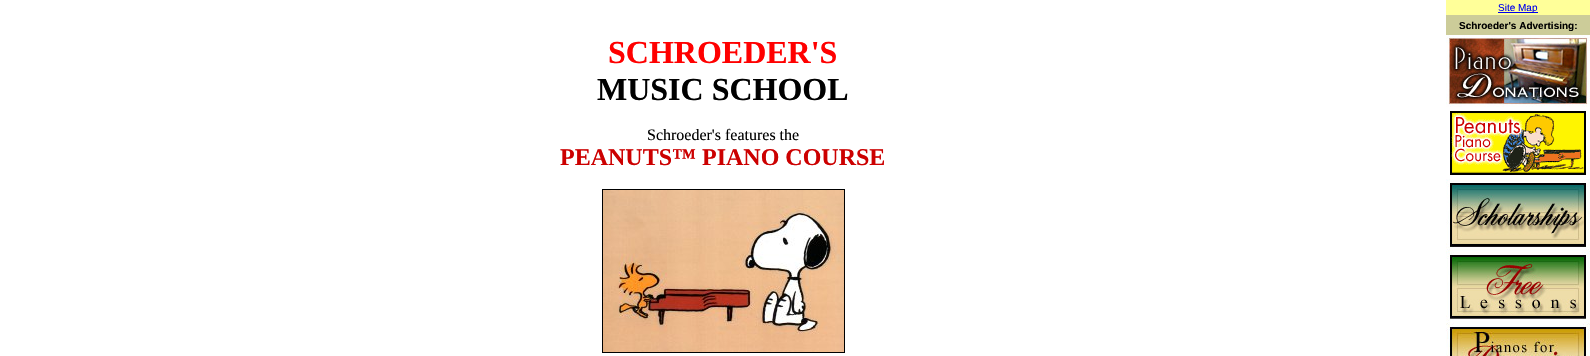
void draw(SkCanvas* c) {
SkPaint p;
p.setAntiAlias(true);
auto F=[&](const char* family, int weight, float size, bool italic = false){SkFontStyle style(weight, SkFontStyle::kNormal_Width,italic ? SkFontStyle::kItalic_Slant : SkFontStyle::kUpright_Slant);SkFont result(fontMgr->matchFamilyStyle(family, style), size);result.setSubpixel(true);return result;};
auto T=[&](const char* s, float x, float y, const SkFont& font){c->drawString(s, x, y, font, p);};
auto R=[&](float x, float y, float w, float h){c->drawRect(SkRect::MakeXYWH(x, y, w, h), p);};
auto I=[&](const char* path, float x, float y, float w, float h){auto image = SkImages::DeferredFromEncodedData(SkData::MakeFromFileName(path));c->drawImageRect(image, SkRect::MakeXYWH(x, y, w, h), SkSamplingOptions());};
c->clear(0xffffffff);
p.setColor(0xffcccc99);
R(1446,15,144,20);
p.setColor(0xffffff99);
R(1446,0,144,15);
p.setColor(0xff0000ee);
R(1498,12,40,1);
auto f1 = F("Liberation Sans",400,10);
T("Site Map",1498,11,f1);
auto f2 = F("Liberation Sans",700,10);
p.setColor(0xff000000);
T("Schroeder's Advertising:",1459,29,f2);
I("1.png",1446,35,144,72);
I("2.png",1446,107,144,72);
I("3.png",1446,179,144,72);
I("4.png",1446,251,144,72);
I("5.png",1446,323,144,33);
auto f3 = F("Liberation Serif",700,32);
p.setColor(0xffff0000);
T("SCHROEDER'S",608,63,f3);
p.setColor(0xff000000);
T("MUSIC SCHOOL",597,100,f3);
auto f4 = F("Liberation Serif",400,16);
T("Schroeder's features the",647,140,f4);
auto f5 = F("Liberation Serif",700,24);
p.setColor(0xffcc0000);
T("PEANUTS™ PIANO COURSE",560,165,f5);
p.setStroke(true);
p.setStrokeWidth(1);
p.setColor(0xff000000);
c->drawRect(SkRect::MakeXYWH(602.5,189.5,242,163),p);
I("6.png",603,190,241,162);
}
